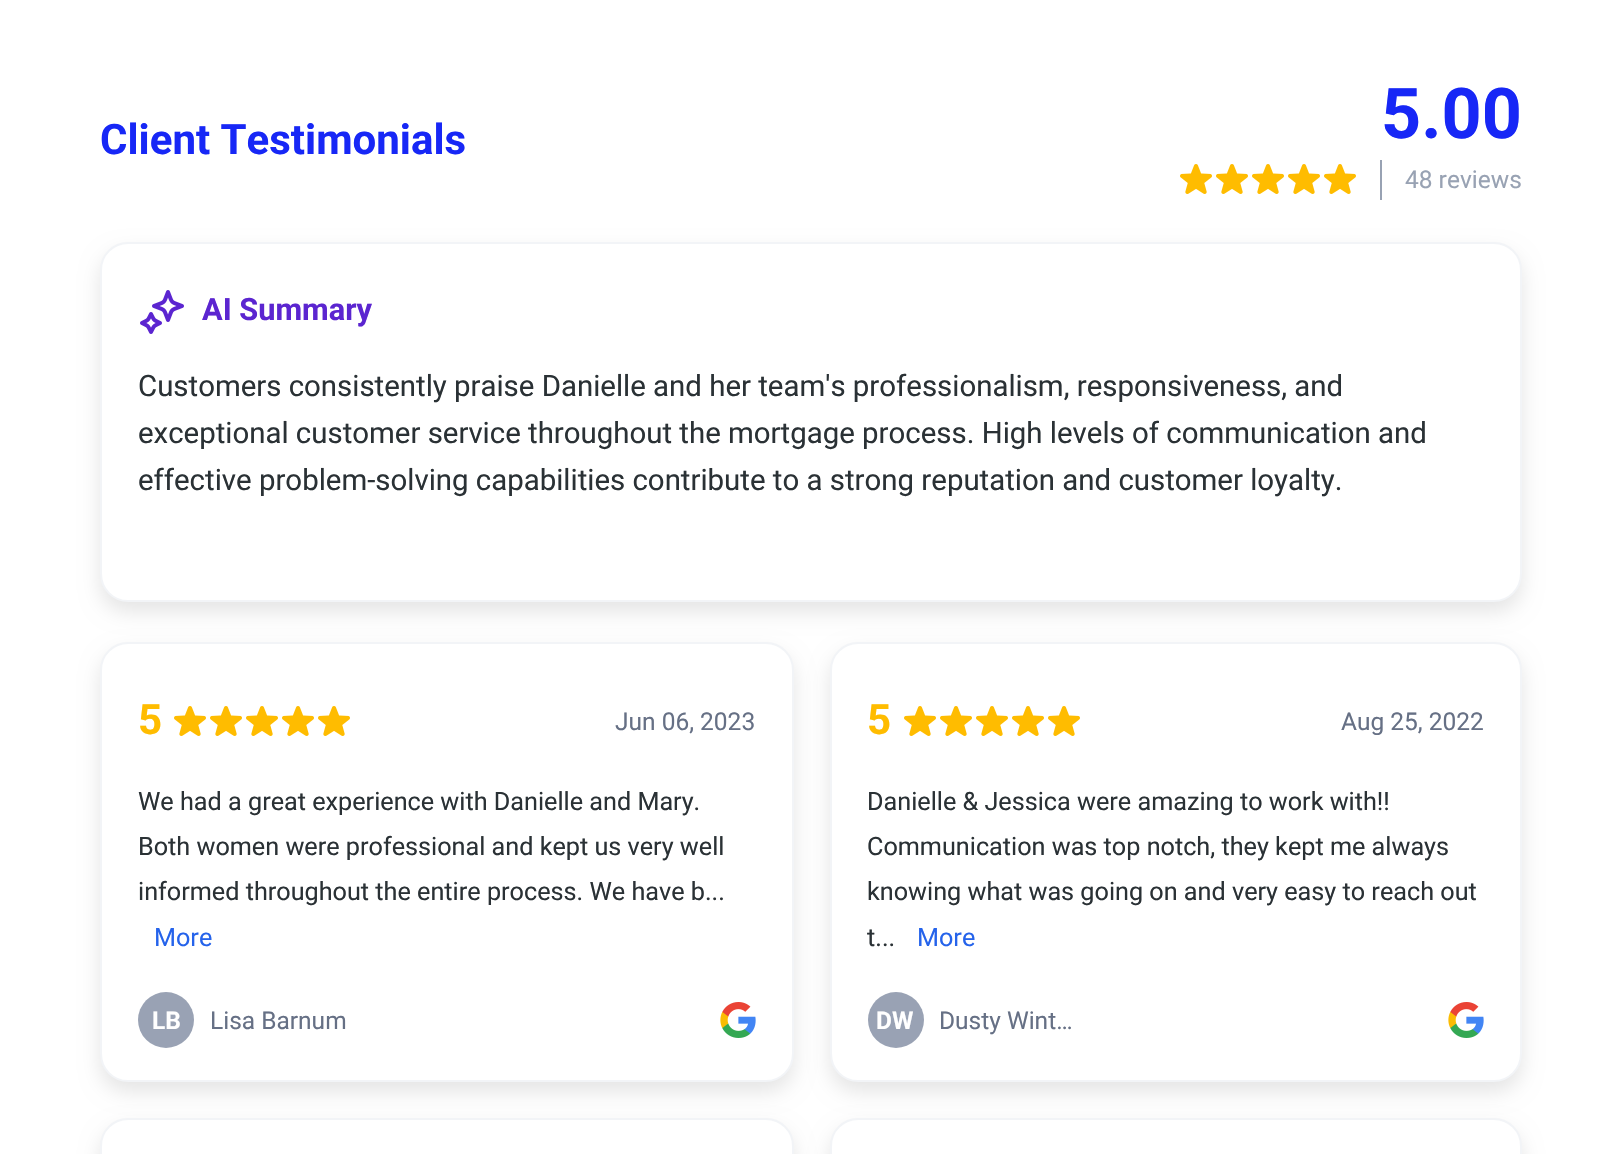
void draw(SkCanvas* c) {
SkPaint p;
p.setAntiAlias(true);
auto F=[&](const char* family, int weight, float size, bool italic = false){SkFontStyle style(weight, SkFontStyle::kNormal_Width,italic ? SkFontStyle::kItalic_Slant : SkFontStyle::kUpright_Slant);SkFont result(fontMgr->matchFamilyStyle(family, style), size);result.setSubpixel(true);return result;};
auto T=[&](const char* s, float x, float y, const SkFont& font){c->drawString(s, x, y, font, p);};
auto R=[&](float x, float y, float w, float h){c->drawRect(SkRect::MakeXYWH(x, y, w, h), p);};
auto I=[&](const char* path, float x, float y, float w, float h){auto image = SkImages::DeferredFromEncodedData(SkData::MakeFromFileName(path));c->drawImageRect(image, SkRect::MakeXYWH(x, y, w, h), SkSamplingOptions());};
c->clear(0xffffffff);
auto f1 = F("Roboto",700,42);
p.setColor(0xff1727f6);
T("Client Testimonials",100,154,f1);
auto f2 = F("Roboto",700,70);
T("5.00",1381,138,f2);
I("1.png",1180,164,32,30);
I("1.png",1216,164,32,30);
I("1.png",1252,164,32,30);
I("1.png",1288,164,32,30);
I("1.png",1324,164,32,30);
p.setColor(0xff98a2b3);
R(1380,160,2,40);
auto f3 = F("Roboto",400,24.5);
T("48 reviews",1405,188,f3);
p.setColor(0x1a000000);
p.setMaskFilter(SkMaskFilter::MakeBlur(kNormal_SkBlurStyle, 10));
c->drawRoundRect(SkRect::MakeXYWH(100,252,1422,360),28,28,p);
p.setMaskFilter(nullptr);
p.setColor(0xffffffff);
c->drawRoundRect(SkRect::MakeXYWH(101,243,1420,358),27,27,p);
p.setStroke(true);
p.setStrokeWidth(2);
p.setColor(0xfff2f4f7);
c->drawRoundRect(SkRect::MakeXYWH(101,243,1420,358),27,27,p);
I("2.png",140,290,44,44);
auto f4 = F("Roboto",700,30.75);
p.setStroke(false);
p.setColor(0xff5b25d0);
T("AI Summary",202,320,f4);
auto f5 = F("Roboto",400,29.4);
p.setColor(0xff2a3135);
T("Customers consistently praise Danielle and her team's professionalism, responsiveness, and",138,396,f5);
T("exceptional customer service throughout the mortgage process. High levels of communication and",138,443,f5);
T("effective problem-solving capabilities contribute to a strong reputation and customer loyalty.",138,490,f5);
p.setColor(0x1a000000);
p.setMaskFilter(SkMaskFilter::MakeBlur(kNormal_SkBlurStyle, 10));
c->drawRoundRect(SkRect::MakeXYWH(100,652,694,440),28,28,p);
p.setMaskFilter(nullptr);
p.setColor(0xffffffff);
c->drawRoundRect(SkRect::MakeXYWH(101,643,692,438),27,27,p);
p.setStroke(true);
p.setColor(0xfff2f4f7);
c->drawRoundRect(SkRect::MakeXYWH(101,643,692,438),27,27,p);
p.setStroke(false);
p.setColor(0xffffbc00);
T("5",138,734,f1);
I("1.png",174,706,32,30);
I("1.png",210,706,32,30);
I("1.png",246,706,32,30);
I("1.png",282,706,32,30);
I("1.png",318,706,32,30);
p.setColor(0xff667085);
T("Jun 06, 2023",615,730,f3);
auto f6 = F("Roboto",400,25.2);
p.setColor(0xff2a3135);
T("We had a great experience with Danielle and Mary.",138,810,f6);
T("Both women were professional and kept us very well",138,855,f6);
T("informed throughout the entire process. We have b...",138,900,f6);
p.setColor(0xff2563eb);
T("More",154,946,f6);
p.setColor(0xff99a2b4);
c->drawCircle(166,1020,28,p);
auto f7 = F("Roboto",700,24.5);
p.setColor(0xffffffff);
T("LB",152,1029,f7);
p.setColor(0xff667085);
T("Lisa Barnum",210,1029,f3);
I("3.png",720,1002,36,36);
p.setColor(0x1a000000);
p.setMaskFilter(SkMaskFilter::MakeBlur(kNormal_SkBlurStyle, 10));
c->drawRoundRect(SkRect::MakeXYWH(830,652,692,440),28,28,p);
p.setMaskFilter(nullptr);
p.setColor(0xffffffff);
c->drawRoundRect(SkRect::MakeXYWH(831,643,690,438),27,27,p);
p.setStroke(true);
p.setColor(0xfff2f4f7);
c->drawRoundRect(SkRect::MakeXYWH(831,643,690,438),27,27,p);
p.setStroke(false);
p.setColor(0xffffbc00);
T("5",867,734,f1);
I("1.png",904,706,32,30);
I("1.png",940,706,32,30);
I("1.png",976,706,32,30);
I("1.png",1012,706,32,30);
I("1.png",1048,706,32,30);
p.setColor(0xff667085);
T("Aug 25, 2022",1341,730,f3);
p.setColor(0xff2a3135);
T("Danielle & Jessica were amazing to work with!!",867,810,f6);
T("Communication was top notch, they kept me always",867,855,f6);
T("knowing what was going on and very easy to reach out",867,900,f6);
T("t...",867,946,f6);
p.setColor(0xff2563eb);
T("More",917,946,f6);
p.setColor(0xff99a2b4);
c->drawCircle(896,1020,28,p);
p.setColor(0xffffffff);
T("DW",876,1029,f7);
p.setColor(0xff667085);
T("Dusty Wint…",939,1029,f3);
I("3.png",1448,1002,36,36);
p.setColor(0x1a000000);
p.setMaskFilter(SkMaskFilter::MakeBlur(kNormal_SkBlurStyle, 10));
c->drawRoundRect(SkRect::MakeXYWH(100,1128,694,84),28,28,p);
p.setMaskFilter(nullptr);
p.setColor(0xffffffff);
c->drawRoundRect(SkRect::MakeXYWH(101,1119,692,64),27,27,p);
p.setStroke(true);
p.setColor(0xfff2f4f7);
c->drawRoundRect(SkRect::MakeXYWH(101,1119,692,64),27,27,p);
p.setStroke(false);
p.setColor(0x1a000000);
p.setMaskFilter(SkMaskFilter::MakeBlur(kNormal_SkBlurStyle, 10));
c->drawRoundRect(SkRect::MakeXYWH(830,1128,692,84),28,28,p);
p.setMaskFilter(nullptr);
p.setColor(0xffffffff);
c->drawRoundRect(SkRect::MakeXYWH(831,1119,690,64),27,27,p);
p.setStroke(true);
p.setColor(0xfff2f4f7);
c->drawRoundRect(SkRect::MakeXYWH(831,1119,690,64),27,27,p);
}
